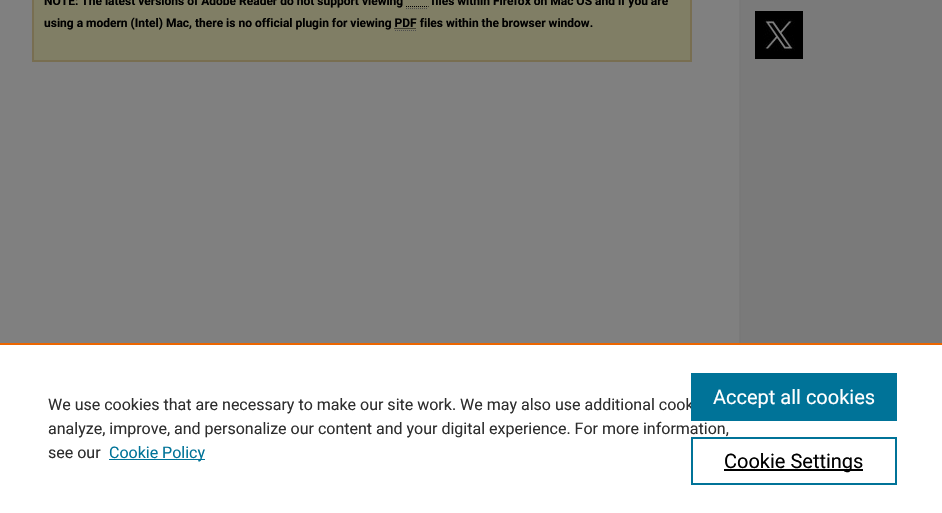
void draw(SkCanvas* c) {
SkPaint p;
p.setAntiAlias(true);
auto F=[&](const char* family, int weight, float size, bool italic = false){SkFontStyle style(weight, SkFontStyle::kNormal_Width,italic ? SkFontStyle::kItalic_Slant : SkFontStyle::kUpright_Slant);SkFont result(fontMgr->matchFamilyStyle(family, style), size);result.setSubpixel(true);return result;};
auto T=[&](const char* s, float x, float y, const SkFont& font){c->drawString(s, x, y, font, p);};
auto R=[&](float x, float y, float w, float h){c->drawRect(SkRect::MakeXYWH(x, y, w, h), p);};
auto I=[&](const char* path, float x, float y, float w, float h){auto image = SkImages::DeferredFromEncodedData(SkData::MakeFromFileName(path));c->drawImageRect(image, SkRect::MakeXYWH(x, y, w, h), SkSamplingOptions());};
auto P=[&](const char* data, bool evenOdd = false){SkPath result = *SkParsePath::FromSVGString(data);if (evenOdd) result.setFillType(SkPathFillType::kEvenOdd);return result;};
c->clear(0xffffffff);
I("1.png",730,0,212,343);
p.setColor(0xff808080);
R(0,0,730,343);
p.setColor(0xff807e65);
c->drawRect(SkRect::MakeXYWH(33,-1,658,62),p);
p.setStroke(true);
p.setStrokeWidth(2);
p.setColor(0xff786e51);
c->drawRect(SkRect::MakeXYWH(33,-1,658,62),p);
auto f1 = F("Roboto",700,12);
p.setStroke(false);
p.setColor(0xff000000);
T("NOTE: The latest versions of Adobe Reader do not support viewing",44,5,f1);
p.setStroke(true);
p.setStrokeWidth(1);
p.setPathEffect(SkDashPathEffect::Make({{1,1}}, 0));
c->drawPath(P("M406 6.5h22.5"),p);
p.setPathEffect(nullptr);
p.setStroke(false);
T("files within Firefox on Mac OS and if you are",431,5,f1);
p.setStroke(true);
p.setColor(0xff4d4d4d);
p.setPathEffect(SkDashPathEffect::Make({{1,1}}, 0));
c->drawPath(P("M406 8.5h22"),p);
p.setPathEffect(nullptr);
p.setStroke(false);
p.setColor(0xff000000);
T("using a modern (Intel) Mac, there is no official plugin for viewing PDF files within the browser window.",44,27,f1);
p.setStroke(true);
p.setPathEffect(SkDashPathEffect::Make({{1,1}}, 0));
c->drawPath(P("M394.5 28.5h22"),p);
p.setPathEffect(nullptr);
p.setColor(0xff4d4d4d);
p.setPathEffect(SkDashPathEffect::Make({{1,1}}, 0));
c->drawPath(P("M395 30.5h22"),p);
p.setPathEffect(nullptr);
I("2.png",755,11,48,48);
p.setStroke(false);
p.setColor(0xffeb6500);
R(0,343,942,2);
auto f2 = F("Roboto",400,16);
p.setColor(0xff2e2e2e);
T("We use cookies that are necessary to make our site work. We may also use additional cook",48,410,f2);
T("analyze, improve, and personalize our content and your digital experience. For more information,",48,434,f2);
T("see our",48,458,f2);
p.setColor(0xff007398);
R(109,459,96,1);
T("Cookie Policy",109,458,f2);
R(691,373,206,48);
auto f3 = F("Roboto",400,20);
p.setColor(0xffffffff);
T("Accept all cookies",713,404,f3);
p.setStroke(true);
p.setStrokeWidth(2);
p.setColor(0xff007398);
c->drawRect(SkRect::MakeXYWH(692,438,204,46),p);
p.setStroke(false);
p.setColor(0xff000000);
R(724,469,139,2);
T("Cookie Settings",724,468,f3);
}
